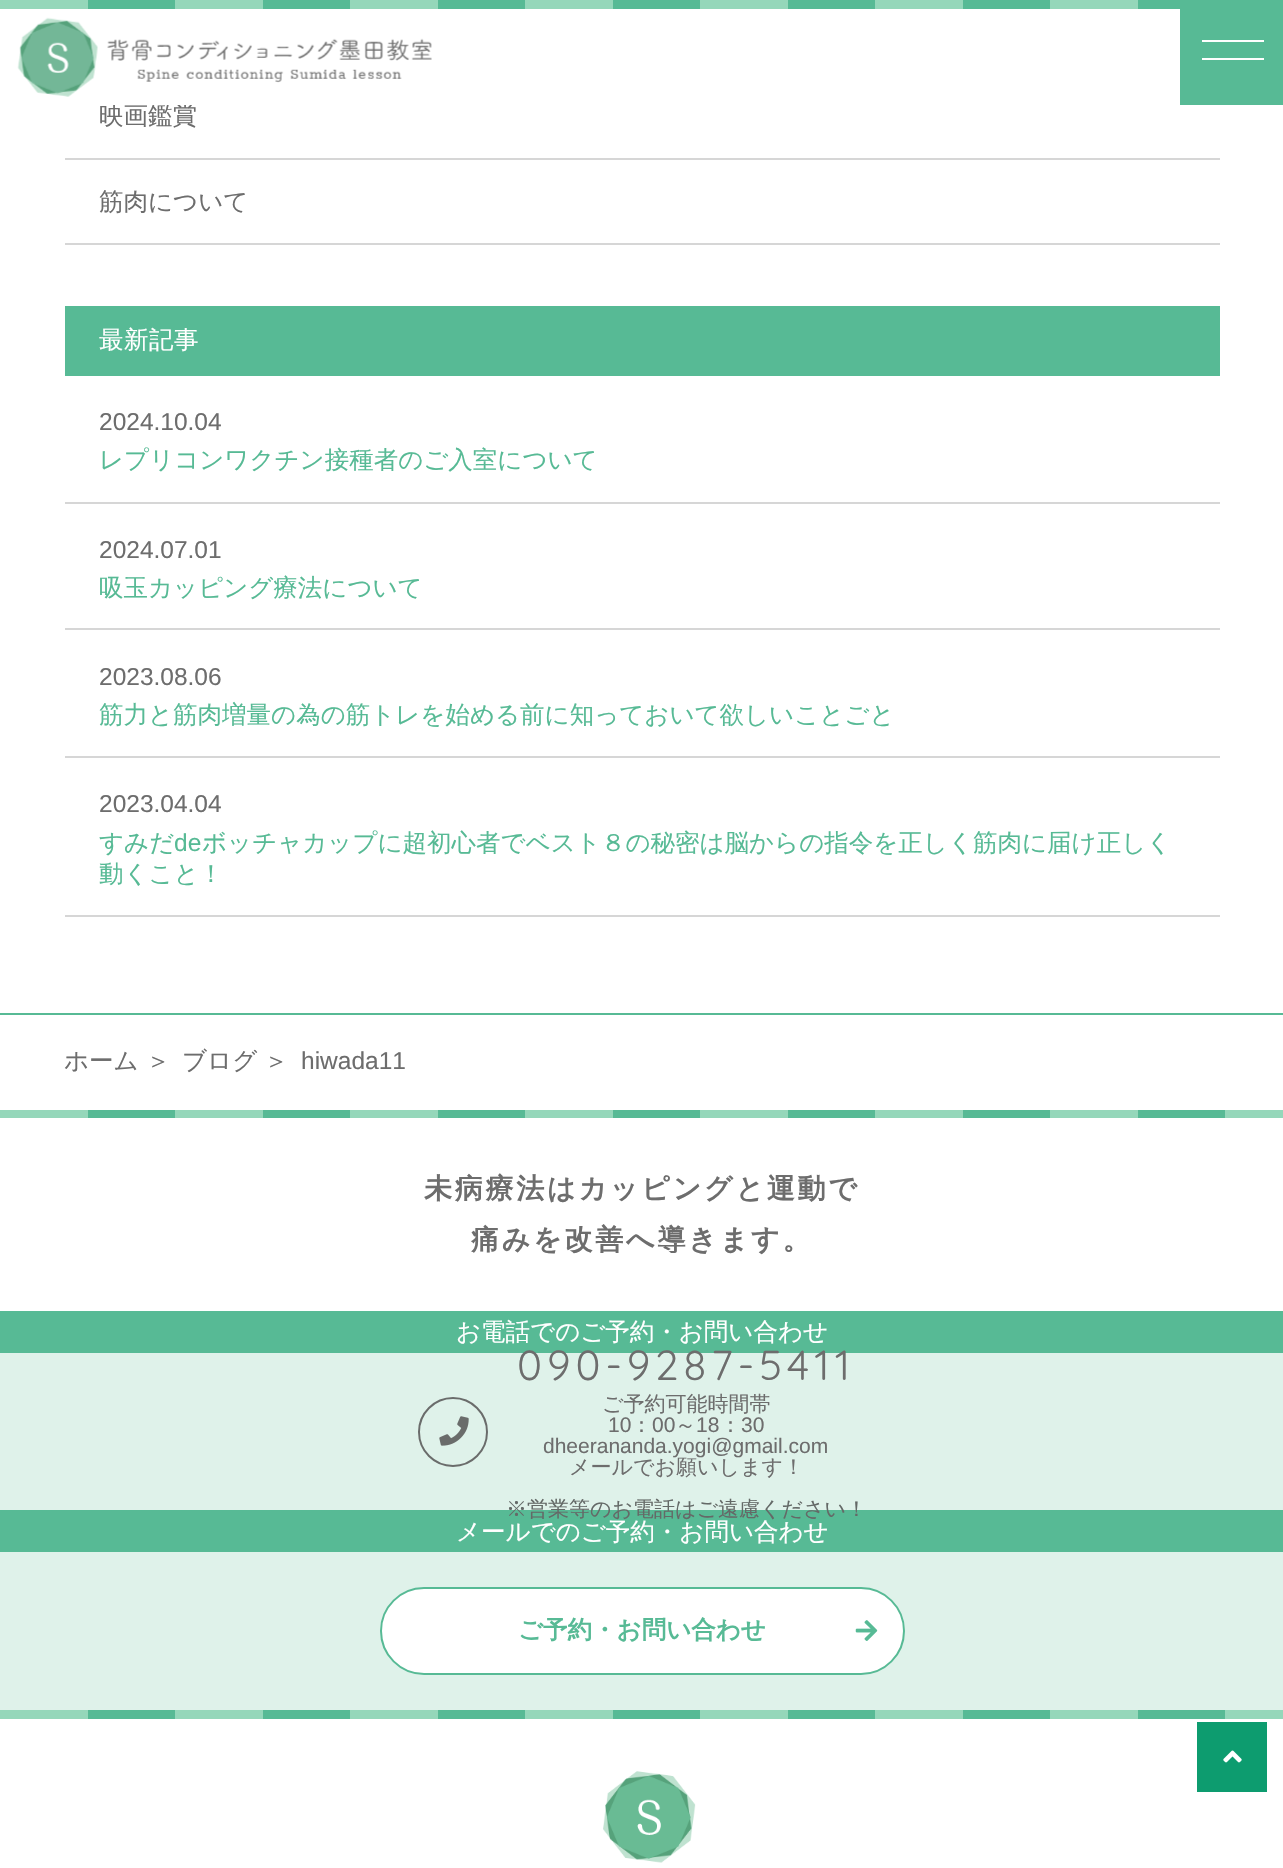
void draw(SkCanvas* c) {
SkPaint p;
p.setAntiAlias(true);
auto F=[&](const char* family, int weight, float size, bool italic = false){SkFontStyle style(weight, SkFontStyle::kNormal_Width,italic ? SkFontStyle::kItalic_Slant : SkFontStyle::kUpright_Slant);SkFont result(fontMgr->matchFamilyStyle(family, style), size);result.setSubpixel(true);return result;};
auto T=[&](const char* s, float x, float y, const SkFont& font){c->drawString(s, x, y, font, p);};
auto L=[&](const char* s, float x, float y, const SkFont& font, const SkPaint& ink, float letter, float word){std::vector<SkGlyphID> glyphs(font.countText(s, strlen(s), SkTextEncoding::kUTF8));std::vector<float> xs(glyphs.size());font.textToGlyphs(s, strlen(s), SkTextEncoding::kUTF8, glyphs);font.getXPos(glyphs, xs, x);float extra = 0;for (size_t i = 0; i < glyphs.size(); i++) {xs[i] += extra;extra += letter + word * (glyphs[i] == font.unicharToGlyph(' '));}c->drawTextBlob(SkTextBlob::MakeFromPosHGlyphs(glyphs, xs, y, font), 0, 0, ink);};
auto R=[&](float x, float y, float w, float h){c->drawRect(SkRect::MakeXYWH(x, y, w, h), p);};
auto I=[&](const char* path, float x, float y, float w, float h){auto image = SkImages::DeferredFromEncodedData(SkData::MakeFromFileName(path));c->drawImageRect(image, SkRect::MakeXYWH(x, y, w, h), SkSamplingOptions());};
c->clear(0xffffffff);
auto f1 = F("WenQuanYi Zen Hei",500,24.5);
p.setColor(0xff6d6d6d);
T("映画鑑賞",99,124,f1);
p.setColor(0xffffffff);
R(113,103,79,2);
p.setColor(0xff95d7ba);
R(0,0,88,9);
p.setColor(0xff57ba95);
R(88,0,87,9);
p.setColor(0xff95d7ba);
R(175,0,88,9);
p.setColor(0xff57ba95);
R(263,0,87,9);
p.setColor(0xff95d7ba);
R(350,0,88,9);
p.setColor(0xff57ba95);
R(438,0,87,9);
p.setColor(0xff95d7ba);
R(525,0,88,9);
p.setColor(0xff57ba95);
R(613,0,87,9);
p.setColor(0xff95d7ba);
R(700,0,88,9);
p.setColor(0xff57ba95);
R(788,0,87,9);
p.setColor(0xff95d7ba);
R(875,0,88,9);
p.setColor(0xff57ba95);
R(963,0,87,9);
p.setColor(0xff95d7ba);
R(1050,0,88,9);
p.setColor(0xff57ba95);
R(1138,0,42,9);
I("1.png",17,17,415,80);
R(1180,0,103,105);
p.setColor(0xffffffff);
R(1202,40,62,2);
R(1202,58,62,2);
p.setColor(0xffd6d6d6);
R(65,158,1155,2);
R(65,243,1155,2);
p.setColor(0xff6d6d6d);
T("筋肉について",99,210,f1);
p.setColor(0xff57ba95);
R(65,306,1155,70);
p.setColor(0xffffffff);
L("最新記事",99,348,f1,p,.5,0);
p.setColor(0xffd6d6d6);
R(65,502,1155,2);
auto f2 = F("Liberation Sans",400,24.5);
p.setColor(0xff6d6d6d);
T("2024.10.04",99,430,f2);
p.setColor(0xff57ba95);
T("レプリコンワクチン接種者のご入室について",99,468,f1);
p.setColor(0xffd6d6d6);
R(65,628,1155,2);
p.setColor(0xff6d6d6d);
T("2024.07.01",99,558,f2);
p.setColor(0xff57ba95);
T("吸玉カッピング療法について",99,596,f1);
p.setColor(0xffd6d6d6);
R(65,756,1155,2);
p.setColor(0xff6d6d6d);
T("2023.08.06",99,685,f2);
p.setColor(0xff57ba95);
T("筋力と筋肉増量の為の筋トレを始める前に知っておいて欲しいことごと",99,723,f1);
p.setColor(0xffd6d6d6);
R(65,915,1155,2);
p.setColor(0xff6d6d6d);
T("2023.04.04",99,812,f2);
p.setColor(0xff57ba95);
T("すみだ",99,851,f1);
T("de",174,851,f2);
T("ボッチャカップに超初心者でベスト８の秘密は脳からの指令を正しく筋肉に届け正しく",202,851,f1);
T("動くこと！",99,882,f1);
R(0,1013,1283,2);
p.setColor(0xff6d6d6d);
T("ホーム",64,1069,f1);
T("＞",146,1069,f1);
T("ブログ",182,1069,f1);
T("＞",264,1069,f1);
T("hiwada11",301,1069,f2);
p.setColor(0xff95d7ba);
R(0,1110,88,8);
p.setColor(0xff57ba95);
R(88,1110,87,8);
p.setColor(0xff95d7ba);
R(175,1110,88,8);
p.setColor(0xff57ba95);
R(263,1110,87,8);
p.setColor(0xff95d7ba);
R(350,1110,88,8);
p.setColor(0xff57ba95);
R(438,1110,87,8);
p.setColor(0xff95d7ba);
R(525,1110,88,8);
p.setColor(0xff57ba95);
R(613,1110,87,8);
p.setColor(0xff95d7ba);
R(700,1110,88,8);
p.setColor(0xff57ba95);
R(788,1110,87,8);
p.setColor(0xff95d7ba);
R(875,1110,88,8);
p.setColor(0xff57ba95);
R(963,1110,87,8);
p.setColor(0xff95d7ba);
R(1050,1110,88,8);
p.setColor(0xff57ba95);
R(1138,1110,87,8);
p.setColor(0xff95d7ba);
R(1225,1110,58,8);
auto f3 = F("WenQuanYi Zen Hei",700,28);
p.setColor(0xff6d6d6d);
L("未病療法はカッピングと運動で",424,1198,f3,p,2.75,0);
L("痛みを改善へ導きます。",471,1249,f3,p,2.75,0);
p.setColor(0xffdff2ea);
R(0,1353,1283,357);
p.setColor(0xff57ba95);
R(0,1311,1283,42);
p.setColor(0xffffffff);
T("お電話でのご予約・お問い合わせ",456,1340,f1);
p.setStroke(true);
p.setStrokeWidth(2);
p.setColor(0xff6a6c6b);
c->drawCircle(453,1432,34,p);
I("2.png",439,1416,30,30);
auto f4 = F("Quicksand",300,42);
p.setStroke(false);
p.setColor(0xff6d6d6d);
L("090-9287-5411",517,1380,f4,p,5,0);
auto f5 = F("WenQuanYi Zen Hei",500,21);
T("ご予約可能時間帯",602,1411,f5);
auto f6 = F("Liberation Sans",400,21);
T("10",608,1432,f6);
T("：",631,1432,f5);
T("00",652,1432,f6);
T("～",675,1432,f5);
T("18",696,1432,f6);
T("：",720,1432,f5);
T("30",741,1432,f6);
T("dheerananda.yogi@gmail.com",543,1453,f6);
T("メールでお願いします！",569,1474,f5);
p.setColor(0xff57ba95);
R(0,1510,1283,42);
p.setColor(0xff646967);
T("※営業等のお電話はご遠慮ください！",506,1516,f5);
p.setColor(0xffffffff);
T("メールでのご予約・お問い合わせ",456,1540,f1);
c->drawRoundRect(SkRect::MakeXYWH(381,1588,523,86),43,43,p);
p.setStroke(true);
p.setColor(0xff57ba95);
c->drawRoundRect(SkRect::MakeXYWH(381,1588,523,86),43,43,p);
auto f7 = F("WenQuanYi Zen Hei",700,24.5);
p.setStroke(false);
T("ご予約・お問い合わせ",518,1638,f7);
I("3.png",855,1620,23,21);
p.setColor(0xff95d7ba);
R(0,1710,88,9);
p.setColor(0xff57ba95);
R(88,1710,87,9);
p.setColor(0xff95d7ba);
R(175,1710,88,9);
p.setColor(0xff57ba95);
R(263,1710,87,9);
p.setColor(0xff95d7ba);
R(350,1710,88,9);
p.setColor(0xff57ba95);
R(438,1710,87,9);
p.setColor(0xff95d7ba);
R(525,1710,88,9);
p.setColor(0xff57ba95);
R(613,1710,87,9);
p.setColor(0xff95d7ba);
R(700,1710,88,9);
p.setColor(0xff57ba95);
R(788,1710,87,9);
p.setColor(0xff95d7ba);
R(875,1710,88,9);
p.setColor(0xff57ba95);
R(963,1710,87,9);
p.setColor(0xff95d7ba);
R(1050,1710,88,9);
p.setColor(0xff57ba95);
R(1138,1710,87,9);
p.setColor(0xff95d7ba);
R(1225,1710,58,9);
I("4.png",603,1771,93,92);
p.setColor(0xff0d9c6f);
R(1197,1722,70,70);
I("5.png",1223,1750,19,13);
}
